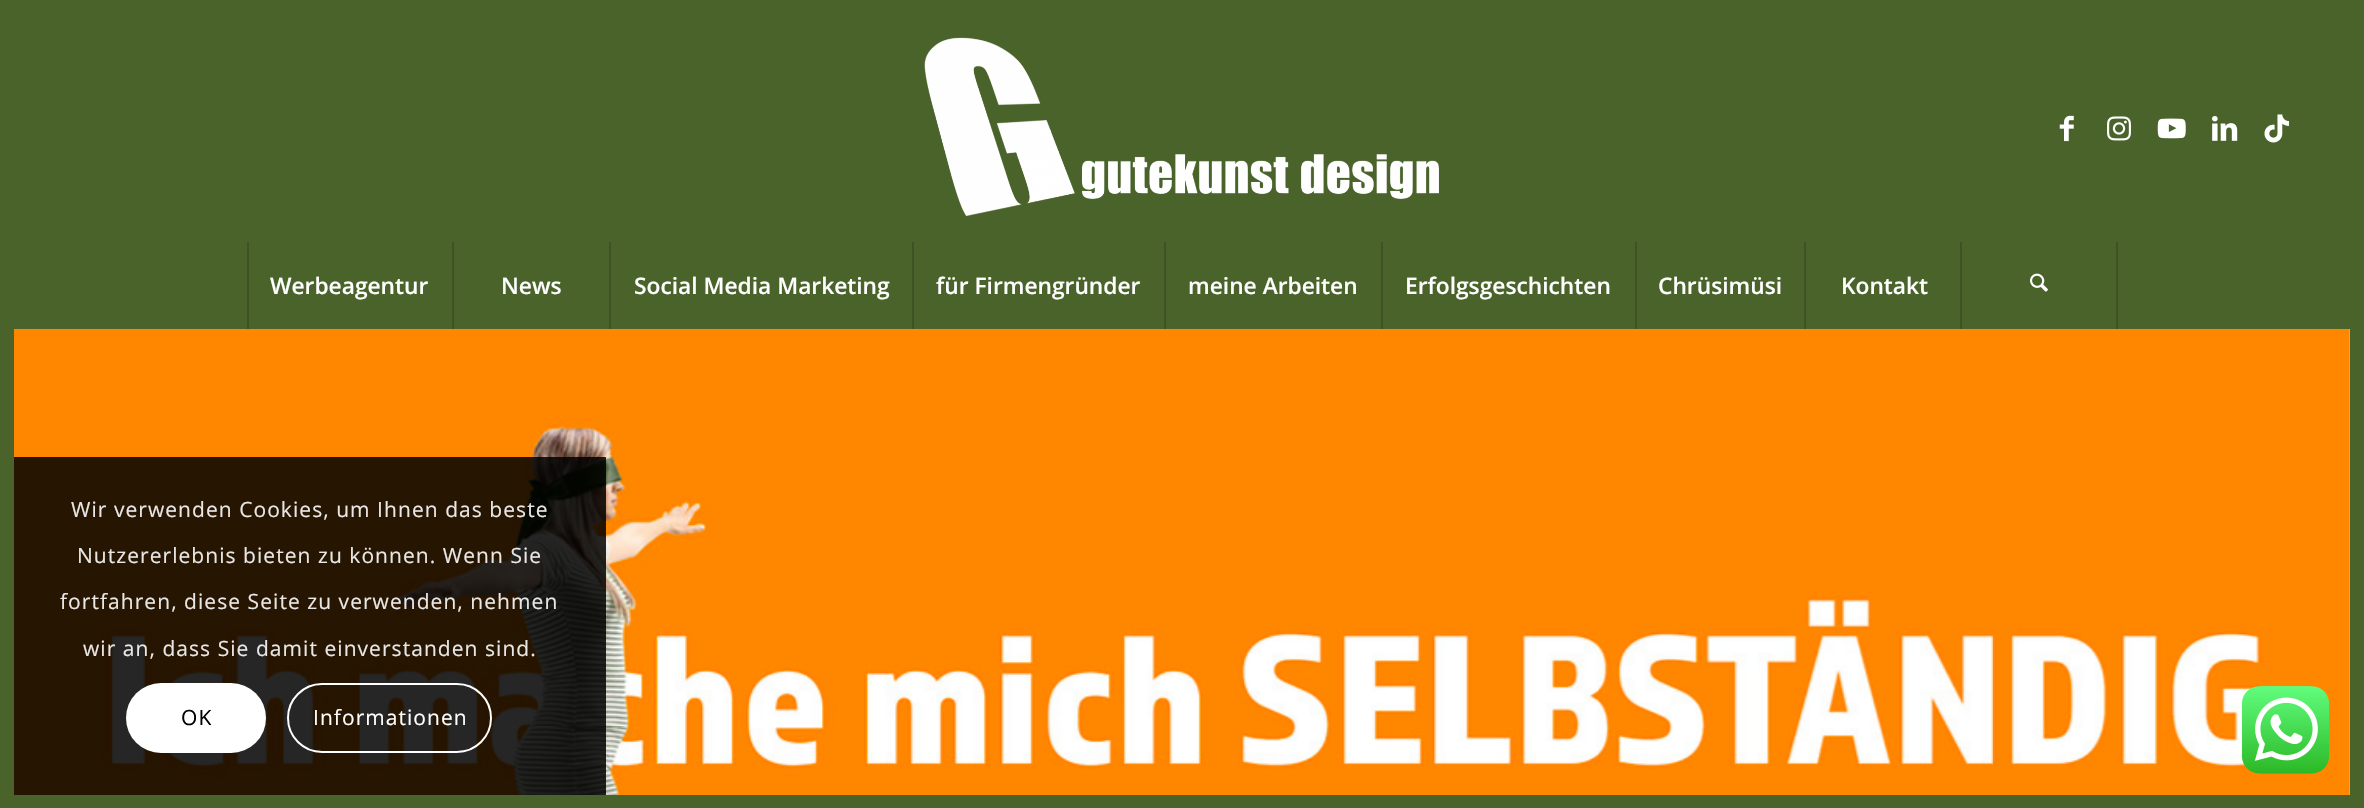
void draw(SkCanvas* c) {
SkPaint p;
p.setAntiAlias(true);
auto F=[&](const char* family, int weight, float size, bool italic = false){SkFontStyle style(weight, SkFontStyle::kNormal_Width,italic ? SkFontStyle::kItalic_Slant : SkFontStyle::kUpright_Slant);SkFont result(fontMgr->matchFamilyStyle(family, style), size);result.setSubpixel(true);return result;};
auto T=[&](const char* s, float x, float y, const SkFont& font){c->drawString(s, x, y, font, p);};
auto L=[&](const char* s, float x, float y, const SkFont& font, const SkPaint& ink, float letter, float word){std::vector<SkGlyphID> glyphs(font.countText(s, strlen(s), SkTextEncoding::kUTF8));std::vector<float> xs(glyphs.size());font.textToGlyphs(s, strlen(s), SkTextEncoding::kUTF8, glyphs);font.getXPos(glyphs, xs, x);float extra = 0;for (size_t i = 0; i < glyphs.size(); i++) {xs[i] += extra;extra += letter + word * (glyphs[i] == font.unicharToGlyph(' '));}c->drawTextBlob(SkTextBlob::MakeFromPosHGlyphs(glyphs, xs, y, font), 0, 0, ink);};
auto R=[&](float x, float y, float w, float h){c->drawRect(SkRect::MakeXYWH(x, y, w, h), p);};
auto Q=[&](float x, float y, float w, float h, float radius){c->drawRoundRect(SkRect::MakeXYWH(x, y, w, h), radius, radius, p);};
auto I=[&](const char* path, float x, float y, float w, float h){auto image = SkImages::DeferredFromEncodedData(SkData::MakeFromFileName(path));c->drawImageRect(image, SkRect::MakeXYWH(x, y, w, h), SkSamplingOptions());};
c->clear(0xffffffff);
p.setColor(0xff4a632b);
R(0,0,14,808);
R(14,0,2336,329);
I("1.png",924,37,515,180);
I("2.png",2059,115,15,27);
I("3.png",2107,116,24,25);
I("4.png",2157,118,29,21);
I("5.png",2212,116,26,25);
I("6.png",2264,114,25,29);
p.setColor(0xff3e5223);
R(247,242,2,87);
auto f1 = F("Open Sans",600,22.75);
p.setColor(0xffffffff);
T("Werbeagentur",270,294,f1);
p.setColor(0xff3e5223);
R(452,242,2,87);
p.setColor(0xffffffff);
T("News",501,294,f1);
p.setColor(0xff3e5223);
R(609,242,2,87);
p.setColor(0xffffffff);
T("Social Media Marketing",634,294,f1);
p.setColor(0xff3e5223);
R(912,242,2,87);
p.setColor(0xffffffff);
T("für Firmengründer",936,294,f1);
p.setColor(0xff3e5223);
R(1164,242,2,87);
p.setColor(0xffffffff);
T("meine Arbeiten",1188,294,f1);
p.setColor(0xff3e5223);
R(1381,242,2,87);
p.setColor(0xffffffff);
T("Erfolgsgeschichten",1405,294,f1);
p.setColor(0xff3e5223);
R(1635,242,2,87);
p.setColor(0xffffffff);
T("Chrüsimüsi",1658,294,f1);
p.setColor(0xff3e5223);
R(1804,242,2,87);
p.setColor(0xffffffff);
T("Kontakt",1841,294,f1);
p.setColor(0xff3e5223);
R(2116,242,2,87);
R(1960,242,2,87);
I("7.png",2030,273,18,19);
I("8.png",14,329,2336,466);
p.setColor(0xff4a632b);
R(2350,0,14,808);
p.setColor(0xd9000000);
R(14,457,592,338);
auto f2 = F("Open Sans",400,21);
p.setColor(0xffe9e7e6);
L("Wir verwenden Cookies, um Ihnen das beste",71,517,f2,p,1.05,0);
L("Nutzererlebnis bieten zu können. Wenn Sie",77,563,f2,p,1.05,0);
L("fortfahren, diese Seite zu verwenden, nehmen",60,609,f2,p,1.05,0);
L("wir an, dass Sie damit einverstanden sind.",83,656,f2,p,1.05,0);
p.setColor(0xffffffff);
Q(126,683,140,70,35);
p.setColor(0xff000000);
L("OK",181,725,f2,p,1.05,0);
p.setStroke(true);
p.setStrokeWidth(2);
p.setColor(0xffffffff);
c->drawRoundRect(SkRect::MakeXYWH(288,684,203,68),34,34,p);
p.setStroke(false);
L("Informationen",313,725,f2,p,1.05,0);
I("9.png",2242,686,87,88);
p.setColor(0xff4a632b);
R(14,795,2336,13);
}
